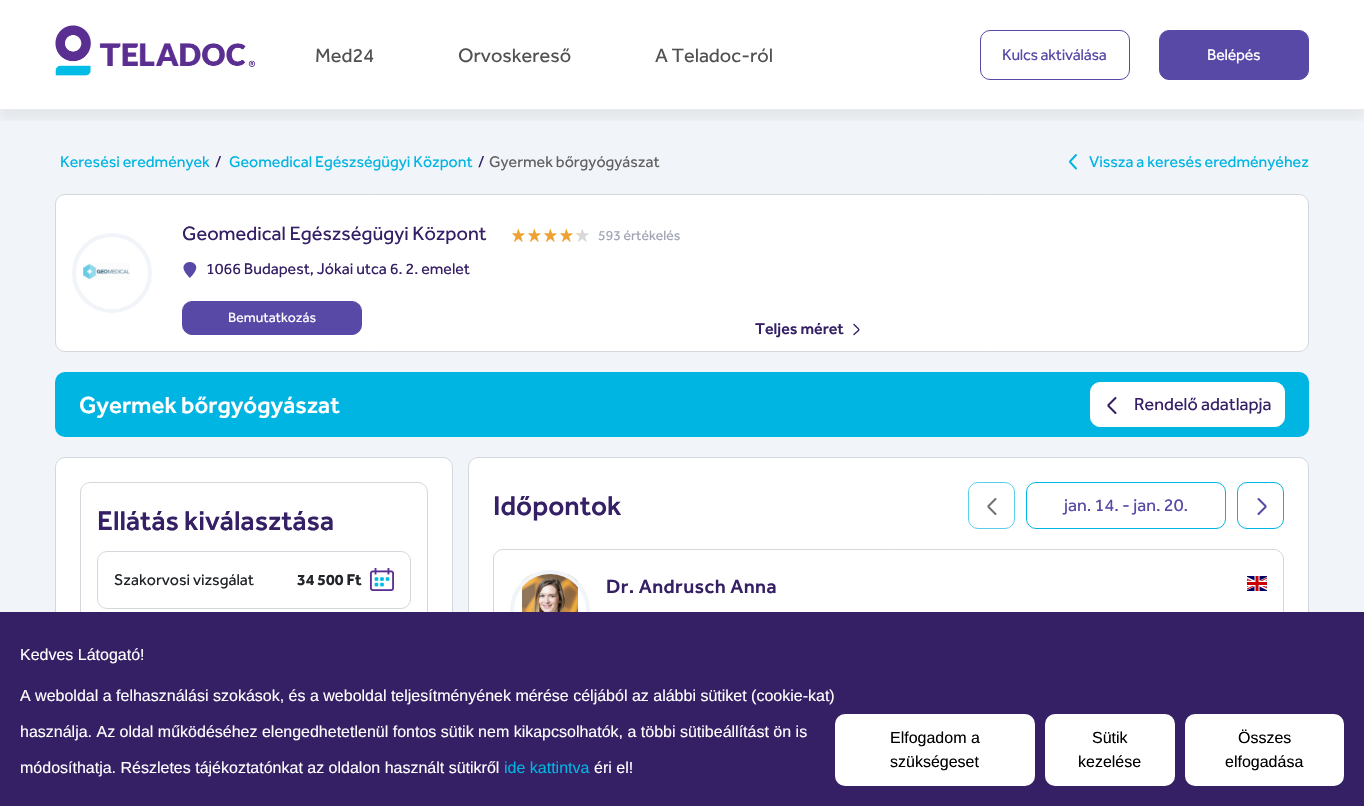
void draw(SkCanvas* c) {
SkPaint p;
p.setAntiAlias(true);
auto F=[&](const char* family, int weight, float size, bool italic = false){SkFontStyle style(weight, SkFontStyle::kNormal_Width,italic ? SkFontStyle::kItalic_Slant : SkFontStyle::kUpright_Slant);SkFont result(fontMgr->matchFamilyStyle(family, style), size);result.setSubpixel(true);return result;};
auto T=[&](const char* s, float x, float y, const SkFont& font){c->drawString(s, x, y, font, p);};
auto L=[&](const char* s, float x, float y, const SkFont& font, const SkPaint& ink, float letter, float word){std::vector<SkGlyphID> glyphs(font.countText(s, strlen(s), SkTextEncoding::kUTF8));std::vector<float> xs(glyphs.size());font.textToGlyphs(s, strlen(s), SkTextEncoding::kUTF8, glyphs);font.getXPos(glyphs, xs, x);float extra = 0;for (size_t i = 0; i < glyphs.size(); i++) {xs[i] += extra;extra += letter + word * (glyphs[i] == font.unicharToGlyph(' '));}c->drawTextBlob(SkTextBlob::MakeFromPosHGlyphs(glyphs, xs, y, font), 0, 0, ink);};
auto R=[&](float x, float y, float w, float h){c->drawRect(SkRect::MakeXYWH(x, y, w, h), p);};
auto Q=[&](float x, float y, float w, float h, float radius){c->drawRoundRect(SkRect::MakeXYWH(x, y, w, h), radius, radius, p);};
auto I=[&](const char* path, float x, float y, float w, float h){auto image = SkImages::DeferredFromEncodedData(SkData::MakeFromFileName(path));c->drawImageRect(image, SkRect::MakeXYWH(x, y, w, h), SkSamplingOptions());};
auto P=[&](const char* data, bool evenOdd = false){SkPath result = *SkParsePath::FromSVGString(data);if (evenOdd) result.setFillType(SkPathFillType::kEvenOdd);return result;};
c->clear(0xfff1f4f8);
p.setColor(0xffffffff);
R(0,0,1364,109);
c->save();
c->clipRect(SkRect::MakeXYWH(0,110,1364,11));
p.setColor(0x0d000000);
p.setMaskFilter(SkMaskFilter::MakeBlur(kNormal_SkBlurStyle, 5));
c->drawRect(SkRect::MakeXYWH(0,10,1364,110),p);
p.setMaskFilter(nullptr);
c->restore();
p.setColor(0xffebe9f0);
R(0,109,1364,1);
I("1.png",55,25,200,51);
auto f1 = F("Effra",400,20);
p.setColor(0xff525252);
T("Med24",315,62,f1);
T("Orvoskereső",458,62,f1);
T("A Teladoc-ról",655,62,f1);
p.setStroke(true);
p.setStrokeWidth(1);
p.setColor(0xff5949a7);
c->drawRoundRect(SkRect::MakeXYWH(980.5,30.5,149,49),9.5,9.5,p);
auto f2 = F("Effra",400,16);
p.setStroke(false);
L("Kulcs aktiválása",1002,60,f2,p,-.25,0);
c->drawRoundRect(SkRect::MakeXYWH(1159.5,30.5,149,49),9.5,9.5,p);
p.setStroke(true);
c->drawRoundRect(SkRect::MakeXYWH(1159.5,30.5,149,49),9.5,9.5,p);
p.setStroke(false);
p.setColor(0xffffffff);
L("Belépés",1207,60,f2,p,-.25,0);
p.setColor(0xff00b5e2);
T("Keresési eredmények",60,167,f2);
p.setColor(0xff351f65);
T("/",215,167,f2);
p.setColor(0xff00b5e2);
T("Geomedical Egészségügyi Központ",229,167,f2);
p.setColor(0xff351f65);
T("/",478,167,f2);
p.setColor(0xff616161);
T("Gyermek bőrgyógyászat",489,167,f2);
p.setStroke(true);
p.setStrokeWidth(1.9);
p.setStrokeCap(SkPaint::kRound_Cap);
p.setStrokeJoin(SkPaint::kRound_Join);
p.setColor(0xff00b5e2);
c->drawPath(P("M1076 168.5l-6-6.5v-.5l6-6.5"),p);
p.setStroke(false);
T("Vissza a keresés eredményéhez",1089,167,f2);
p.setColor(0xffffffff);
c->drawRoundRect(SkRect::MakeXYWH(55.5,194.5,1253,157),9.5,9.5,p);
p.setStroke(true);
p.setStrokeWidth(1);
p.setStrokeCap(SkPaint::kButt_Cap);
p.setStrokeJoin(SkPaint::kMiter_Join);
p.setColor(0xffd4d8dc);
c->drawRoundRect(SkRect::MakeXYWH(55.5,194.5,1253,157),9.5,9.5,p);
I("2.png",83,263,47,17);
p.setStrokeWidth(4);
p.setColor(0xfff1f4f8);
c->drawCircle(112,273,38,p);
p.setStroke(false);
p.setColor(0xff351f65);
T("Geomedical Egészségügyi Központ",182,240,f1);
I("3.png",512,228,13,14);
I("3.png",528,228,13,14);
I("3.png",544,228,13,14);
I("3.png",560,228,13,14);
I("4.png",576,229,13,13);
auto f3 = F("Effra",400,14);
p.setColor(0xff9fa3b4);
T("593 értékelés",598,240,f3);
I("5.png",183,262,14,16);
p.setColor(0xff351f65);
T("1066 Budapest, Jókai utca 6. 2. emelet",206,274,f2);
p.setColor(0xff5949a7);
c->drawRoundRect(SkRect::MakeXYWH(182.5,301.5,179,33),9.5,9.5,p);
p.setStroke(true);
p.setStrokeWidth(1);
c->drawRoundRect(SkRect::MakeXYWH(182.5,301.5,179,33),9.5,9.5,p);
p.setStroke(false);
p.setColor(0xffffffff);
T("Bemutatkozás",228,322,f3);
auto f4 = F("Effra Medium",500,16);
p.setColor(0xff351f65);
T("Teljes méret",755,334,f4);
p.setStroke(true);
p.setStrokeWidth(1.4);
p.setStrokeCap(SkPaint::kRound_Cap);
p.setStrokeJoin(SkPaint::kRound_Join);
c->drawPath(P("M854 324.5c6.5 6.5 6.5 4 0 10"),p);
p.setStroke(false);
p.setColor(0xff00b5e2);
Q(55,372,1254,65,10);
auto f5 = F("Effra Medium",500,24);
p.setColor(0xffffffff);
T("Gyermek bőrgyógyászat",79,413,f5);
c->drawRoundRect(SkRect::MakeXYWH(1090.5,382.5,194,44),9.5,9.5,p);
p.setStroke(true);
p.setStrokeWidth(1);
p.setStrokeCap(SkPaint::kButt_Cap);
p.setStrokeJoin(SkPaint::kMiter_Join);
c->drawRoundRect(SkRect::MakeXYWH(1090.5,382.5,194,44),9.5,9.5,p);
p.setStrokeWidth(2.1);
p.setStrokeCap(SkPaint::kRound_Cap);
p.setStrokeJoin(SkPaint::kRound_Join);
p.setColor(0xff351f65);
c->drawPath(P("M1115.5 413l-7-7c0-.5 0-.5 0-1l7-7"),p);
auto f6 = F("Effra",400,18);
p.setStroke(false);
T("Rendelő adatlapja",1134,410,f6);
p.setColor(0xffffffff);
c->drawRoundRect(SkRect::MakeXYWH(55.5,457.5,397,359),9.5,9.5,p);
p.setStroke(true);
p.setStrokeWidth(1);
p.setStrokeCap(SkPaint::kButt_Cap);
p.setStrokeJoin(SkPaint::kMiter_Join);
p.setColor(0xffd4d8dc);
c->drawRoundRect(SkRect::MakeXYWH(55.5,457.5,397,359),9.5,9.5,p);
c->drawRoundRect(SkRect::MakeXYWH(80.5,482.5,347,217),9.5,9.5,p);
auto f7 = F("Effra Medium",500,28);
p.setStroke(false);
p.setColor(0xff351f65);
T("Ellátás kiválasztása",97,530,f7);
p.setStroke(true);
p.setColor(0xffd4d8dc);
c->drawRoundRect(SkRect::MakeXYWH(97.5,551.5,313,57),9.5,9.5,p);
p.setStroke(false);
p.setColor(0xff212529);
T("Szakorvosi vizsgálat",114,585,f2);
auto f8 = F("Effra",700,16);
T("34 500 Ft",297,585,f8);
I("6.png",370,568,24,23);
p.setColor(0xffffffff);
c->drawRoundRect(SkRect::MakeXYWH(468.5,457.5,840,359),9.5,9.5,p);
p.setStroke(true);
p.setColor(0xffd4d8dc);
c->drawRoundRect(SkRect::MakeXYWH(468.5,457.5,840,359),9.5,9.5,p);
p.setStroke(false);
p.setColor(0xff351f65);
T("Időpontok",493,515,f7);
p.setStroke(true);
p.setColor(0xff59cfec);
c->drawRoundRect(SkRect::MakeXYWH(968.5,482.5,46,46),9.5,9.5,p);
p.setStrokeWidth(2.1);
p.setStrokeCap(SkPaint::kRound_Cap);
p.setStrokeJoin(SkPaint::kRound_Join);
p.setColor(0xff6f7174);
c->drawPath(P("M995.5 514l-7-7c0-.5 0-.5 0-1l7-7"),p);
p.setStrokeWidth(1);
p.setStrokeCap(SkPaint::kButt_Cap);
p.setStrokeJoin(SkPaint::kMiter_Join);
p.setColor(0xff00b5e2);
c->drawRoundRect(SkRect::MakeXYWH(1026.5,482.5,199,46),9.5,9.5,p);
p.setStroke(false);
p.setColor(0xff5949a7);
T("jan. 14. - jan. 20.",1064,511,f6);
p.setStroke(true);
p.setColor(0xff00b5e2);
c->drawRoundRect(SkRect::MakeXYWH(1237.5,482.5,46,46),9.5,9.5,p);
p.setStrokeWidth(2.1);
p.setStrokeCap(SkPaint::kRound_Cap);
p.setStrokeJoin(SkPaint::kRound_Join);
p.setColor(0xff5949a7);
c->drawPath(P("M1258.5 499l7 7c0 .5 0 .5 0 1l-7 7"),p);
p.setStrokeWidth(1);
p.setStrokeCap(SkPaint::kButt_Cap);
p.setStrokeJoin(SkPaint::kMiter_Join);
p.setColor(0xffd4d8dc);
c->drawRoundRect(SkRect::MakeXYWH(493.5,549.5,790,192),9.5,9.5,p);
I("7.png",522,574,56,38);
p.setStrokeWidth(4);
p.setColor(0xfff1f4f8);
c->drawCircle(550,610,38,p);
auto f9 = F("Effra Medium",500,20);
p.setStroke(false);
p.setColor(0xff351f65);
L("Dr. Andrusch Anna",606,593,f9,p,.4,0);
I("8.png",1247,576,20,15);
R(0,612,1364,194);
auto f10 = F("Liberation Sans",400,16);
p.setColor(0xffffffff);
T("Kedves Látogató!",20,660,f10);
T("A weboldal a felhasználási szokások, és a weboldal teljesítményének mérése céljából az alábbi sütiket (cookie-kat)",20,701,f10);
T("használja. Az oldal működéséhez elengedhetetlenül fontos sütik nem kikapcsolhatók, a többi sütibeállítást ön is",20,737,f10);
T("módosíthatja. Részletes tájékoztatónkat az oldalon használt sütikről",20,773,f10);
p.setColor(0xff00b5e2);
T("ide kattintva",504,773,f10);
p.setColor(0xffffffff);
T("éri el!",594,773,f10);
Q(835,714,200,72,10);
p.setColor(0xff000000);
T("Elfogadom a",890,743,f10);
T("szükségeset",890,767,f10);
p.setColor(0xffffffff);
Q(1045,714,130,72,10);
p.setColor(0xff000000);
T("Sütik",1092,743,f10);
T("kezelése",1078,767,f10);
p.setColor(0xffffffff);
Q(1185,714,159,72,10);
p.setColor(0xff000000);
T("Összes",1238,743,f10);
T("elfogadása",1225,767,f10);
}
